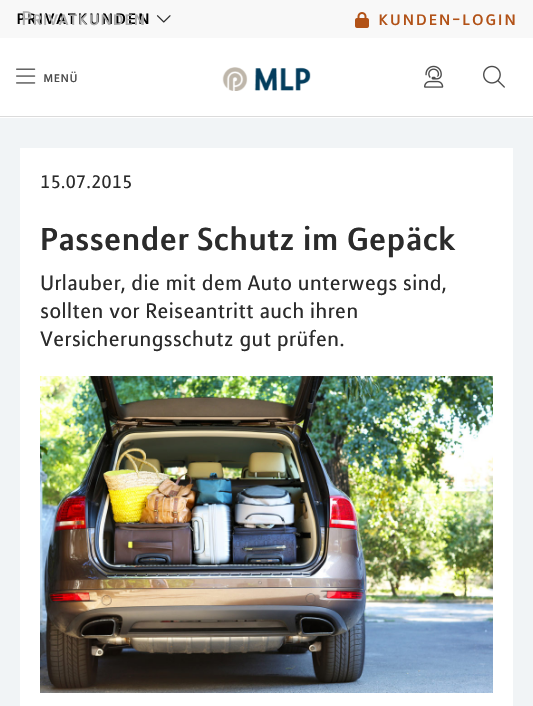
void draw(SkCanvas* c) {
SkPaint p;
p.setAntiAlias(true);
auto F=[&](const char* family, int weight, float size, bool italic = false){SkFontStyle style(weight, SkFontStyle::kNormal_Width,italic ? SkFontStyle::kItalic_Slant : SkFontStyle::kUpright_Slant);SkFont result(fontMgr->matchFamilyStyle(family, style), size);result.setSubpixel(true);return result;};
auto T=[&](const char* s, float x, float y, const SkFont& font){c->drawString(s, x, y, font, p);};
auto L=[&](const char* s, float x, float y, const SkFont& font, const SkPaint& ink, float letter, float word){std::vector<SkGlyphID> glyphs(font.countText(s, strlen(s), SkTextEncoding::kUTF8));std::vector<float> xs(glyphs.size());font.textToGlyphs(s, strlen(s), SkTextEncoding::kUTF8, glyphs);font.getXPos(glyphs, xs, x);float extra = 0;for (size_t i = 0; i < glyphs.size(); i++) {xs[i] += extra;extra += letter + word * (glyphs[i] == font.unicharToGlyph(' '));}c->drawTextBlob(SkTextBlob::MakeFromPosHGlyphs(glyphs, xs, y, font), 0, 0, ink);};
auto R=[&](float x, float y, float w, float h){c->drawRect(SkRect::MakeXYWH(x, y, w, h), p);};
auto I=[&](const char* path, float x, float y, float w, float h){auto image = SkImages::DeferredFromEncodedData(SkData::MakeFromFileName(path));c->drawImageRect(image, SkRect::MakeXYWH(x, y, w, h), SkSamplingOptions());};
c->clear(0xffffffff);
p.setColor(0xffdbdbdb);
R(0,116,533,1);
p.setColor(0xfff8f8f8);
R(0,0,533,38);
auto f1 = F("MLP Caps",400,22);
p.setColor(0xff000000);
L("privatkunden",16,24,f1,p,1,0);
p.setColor(0xffadadad);
T("Privatkunden",21,25,f1);
I("1.png",156,15,15,8);
I("2.png",355,12,14,16);
p.setColor(0xffb25217);
L("kunden-login",378,25,f1,p,1,0);
I("3.png",16,68,20,16);
auto f2 = F("MLP Caps",400,16);
p.setColor(0xff4c4c4c);
T("menü",43,82,f2);
I("4.png",424,65,20,23);
I("5.png",483,65,22,23);
I("6.png",222,67,89,24);
p.setColor(0xfff1f4f6);
R(0,118,533,588);
p.setColor(0xffffffff);
R(20,148,493,558);
auto f3 = F("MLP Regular",400,20);
p.setColor(0xff2b2b2b);
T("15.07.2015",40,188,f3);
auto f4 = F("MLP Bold",700,35);
T("Passender Schutz im Gepäck",40,250,f4);
auto f5 = F("MLP Regular",400,23.4);
T("Urlauber, die mit dem Auto unterwegs sind,",40,290,f5);
T("sollten vor Reiseantritt auch ihren",40,318,f5);
T("Versicherungsschutz gut prüfen.",40,346,f5);
I("7.png",40,376,453,317);
}
